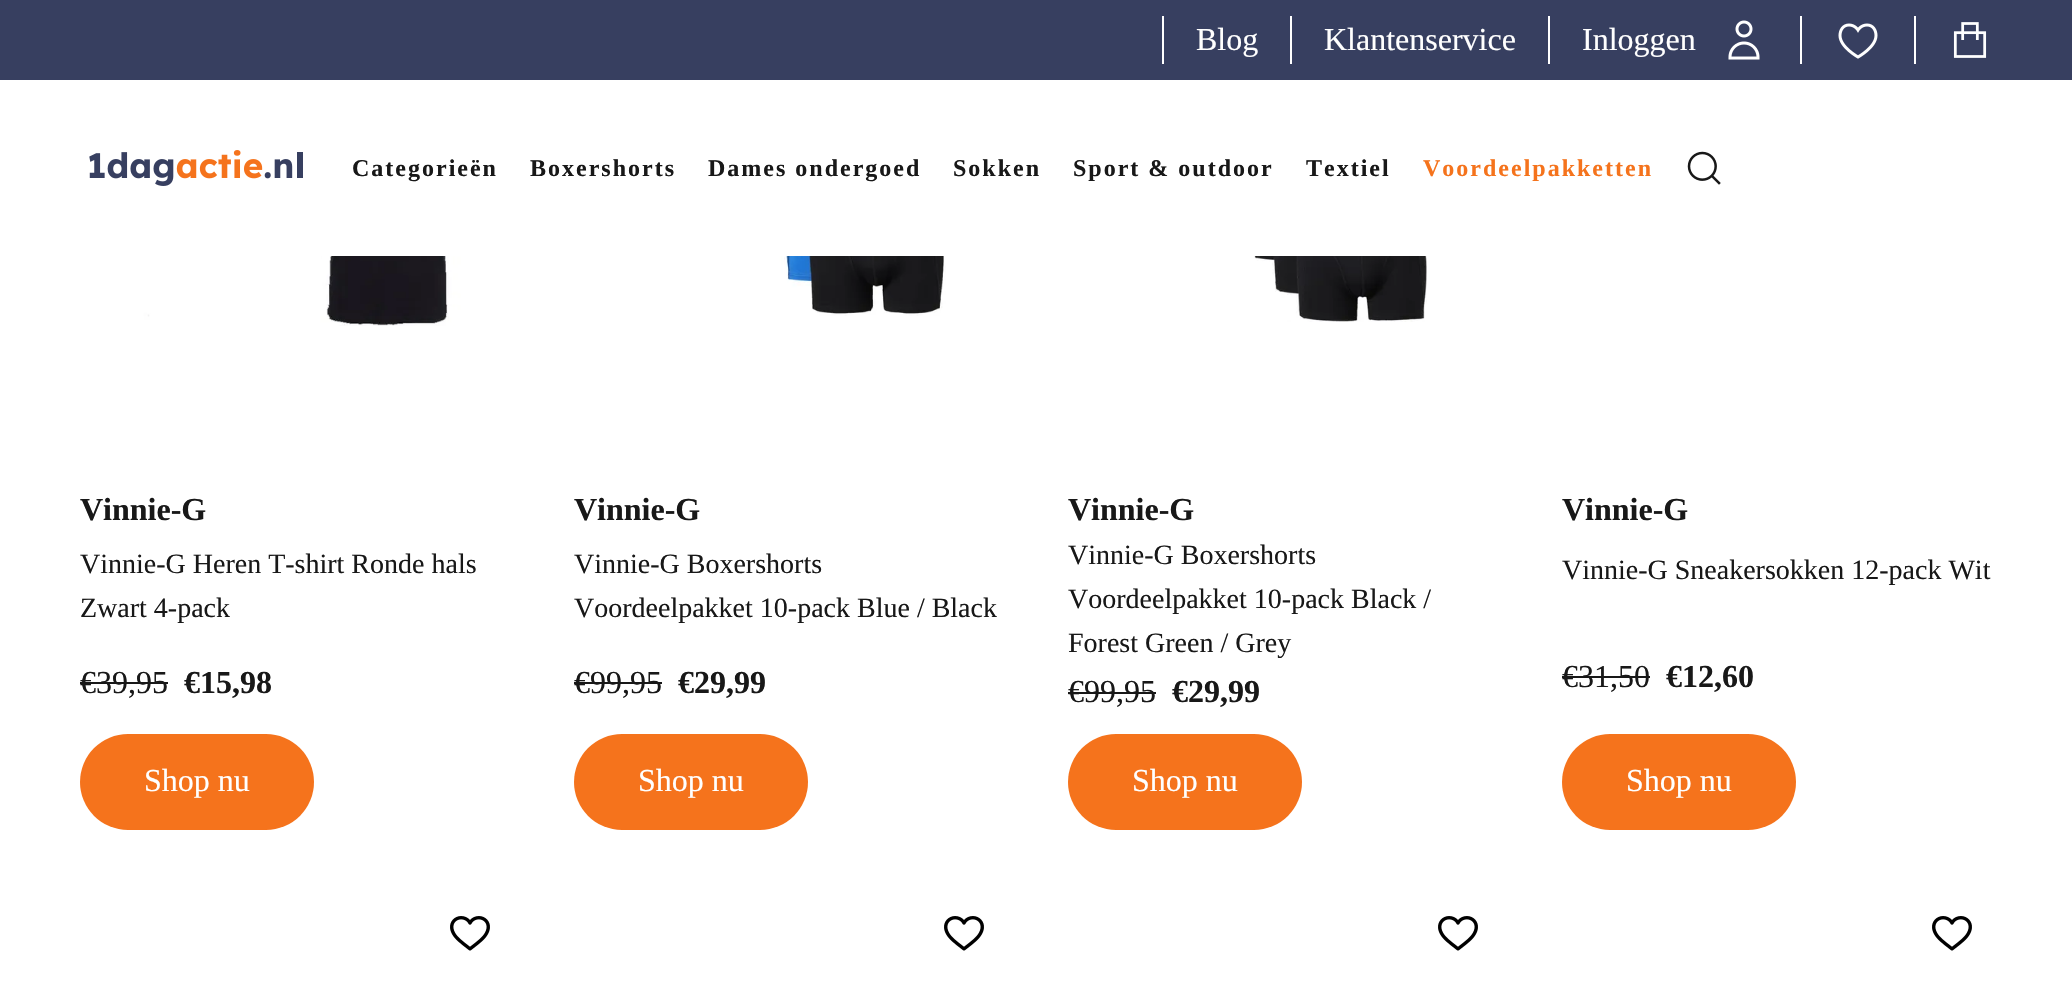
void draw(SkCanvas* c) {
SkPaint p;
p.setAntiAlias(true);
auto F=[&](const char* family, int weight, float size, bool italic = false){SkFontStyle style(weight, SkFontStyle::kNormal_Width,italic ? SkFontStyle::kItalic_Slant : SkFontStyle::kUpright_Slant);SkFont result(fontMgr->matchFamilyStyle(family, style), size);result.setSubpixel(true);return result;};
auto T=[&](const char* s, float x, float y, const SkFont& font){c->drawString(s, x, y, font, p);};
auto L=[&](const char* s, float x, float y, const SkFont& font, const SkPaint& ink, float letter, float word){std::vector<SkGlyphID> glyphs(font.countText(s, strlen(s), SkTextEncoding::kUTF8));std::vector<float> xs(glyphs.size());font.textToGlyphs(s, strlen(s), SkTextEncoding::kUTF8, glyphs);font.getXPos(glyphs, xs, x);float extra = 0;for (size_t i = 0; i < glyphs.size(); i++) {xs[i] += extra;extra += letter + word * (glyphs[i] == font.unicharToGlyph(' '));}c->drawTextBlob(SkTextBlob::MakeFromPosHGlyphs(glyphs, xs, y, font), 0, 0, ink);};
auto R=[&](float x, float y, float w, float h){c->drawRect(SkRect::MakeXYWH(x, y, w, h), p);};
auto Q=[&](float x, float y, float w, float h, float radius){c->drawRoundRect(SkRect::MakeXYWH(x, y, w, h), radius, radius, p);};
auto I=[&](const char* path, float x, float y, float w, float h){auto image = SkImages::DeferredFromEncodedData(SkData::MakeFromFileName(path));c->drawImageRect(image, SkRect::MakeXYWH(x, y, w, h), SkSamplingOptions());};
c->clear(0xffffffff);
p.setColor(0xff373f60);
R(0,0,2072,80);
p.setColor(0xffffffff);
R(1162,16,2,48);
auto f1 = F("Liberation Serif",400,32);
T("Blog",1196,50,f1);
R(1290,16,2,48);
T("Klantenservice",1324,50,f1);
R(1548,16,2,48);
T("Inloggen",1582,50,f1);
I("1.png",1728,20,32,40);
R(1800,16,2,48);
I("2.png",1838,23,40,36);
R(1914,16,2,48);
I("3.png",1953,22,34,36);
I("4.png",89,150,214,36);
auto f2 = F("Liberation Serif",700,24);
p.setColor(0xff181818);
L("Categorieën",352,176,f2,p,2,0);
L("Boxershorts",530,176,f2,p,2,0);
L("Dames ondergoed",708,176,f2,p,2,0);
L("Sokken",953,176,f2,p,2,0);
L("Sport & outdoor",1073,176,f2,p,2,0);
L("Textiel",1306,176,f2,p,2,0);
p.setColor(0xfff5731c);
L("Voordeelpakketten",1423,176,f2,p,2,0);
I("5.png",1687,151,34,34);
I("6.png",125,256,384,70);
auto f3 = F("Liberation Serif",700,32);
p.setColor(0xff181818);
T("Vinnie-G",80,520,f3);
auto f4 = F("Liberation Serif",400,28);
T("Vinnie-G Heren T-shirt Ronde hals",80,573,f4);
T("Zwart 4-pack",80,617,f4);
T("€39,95",80,693,f1);
R(80,682,88,2);
T("€15,98",184,693,f3);
p.setColor(0xfff5731c);
Q(80,734,234,96,48);
p.setColor(0xffffffff);
T("Shop nu",144,791,f1);
I("7.png",617,256,329,60);
p.setColor(0xff181818);
T("Vinnie-G",574,520,f3);
T("Vinnie-G Boxershorts",574,573,f4);
T("Voordeelpakket 10-pack Blue / Black",574,617,f4);
T("€99,95",574,693,f1);
R(574,682,88,2);
T("€29,99",678,693,f3);
p.setColor(0xfff5731c);
Q(574,734,234,96,48);
p.setColor(0xffffffff);
T("Shop nu",638,791,f1);
I("8.png",1111,256,316,66);
p.setColor(0xff181818);
T("Vinnie-G",1068,520,f3);
T("Vinnie-G Boxershorts",1068,564,f4);
T("Voordeelpakket 10-pack Black /",1068,608,f4);
T("Forest Green / Grey",1068,652,f4);
T("€99,95",1068,702,f1);
R(1068,692,88,2);
T("€29,99",1172,702,f3);
p.setColor(0xfff5731c);
Q(1068,734,234,96,48);
p.setColor(0xffffffff);
T("Shop nu",1132,791,f1);
p.setColor(0xff181818);
T("Vinnie-G",1562,520,f3);
T("Vinnie-G Sneakersokken 12-pack Wit",1562,579,f4);
T("€31,50",1562,687,f1);
R(1562,676,88,2);
T("€12,60",1666,687,f3);
p.setColor(0xfff5731c);
Q(1562,734,234,96,48);
p.setColor(0xffffffff);
T("Shop nu",1626,791,f1);
I("9.png",450,916,40,35);
I("9.png",944,916,40,35);
I("9.png",1438,916,40,35);
I("9.png",1932,916,40,35);
}
